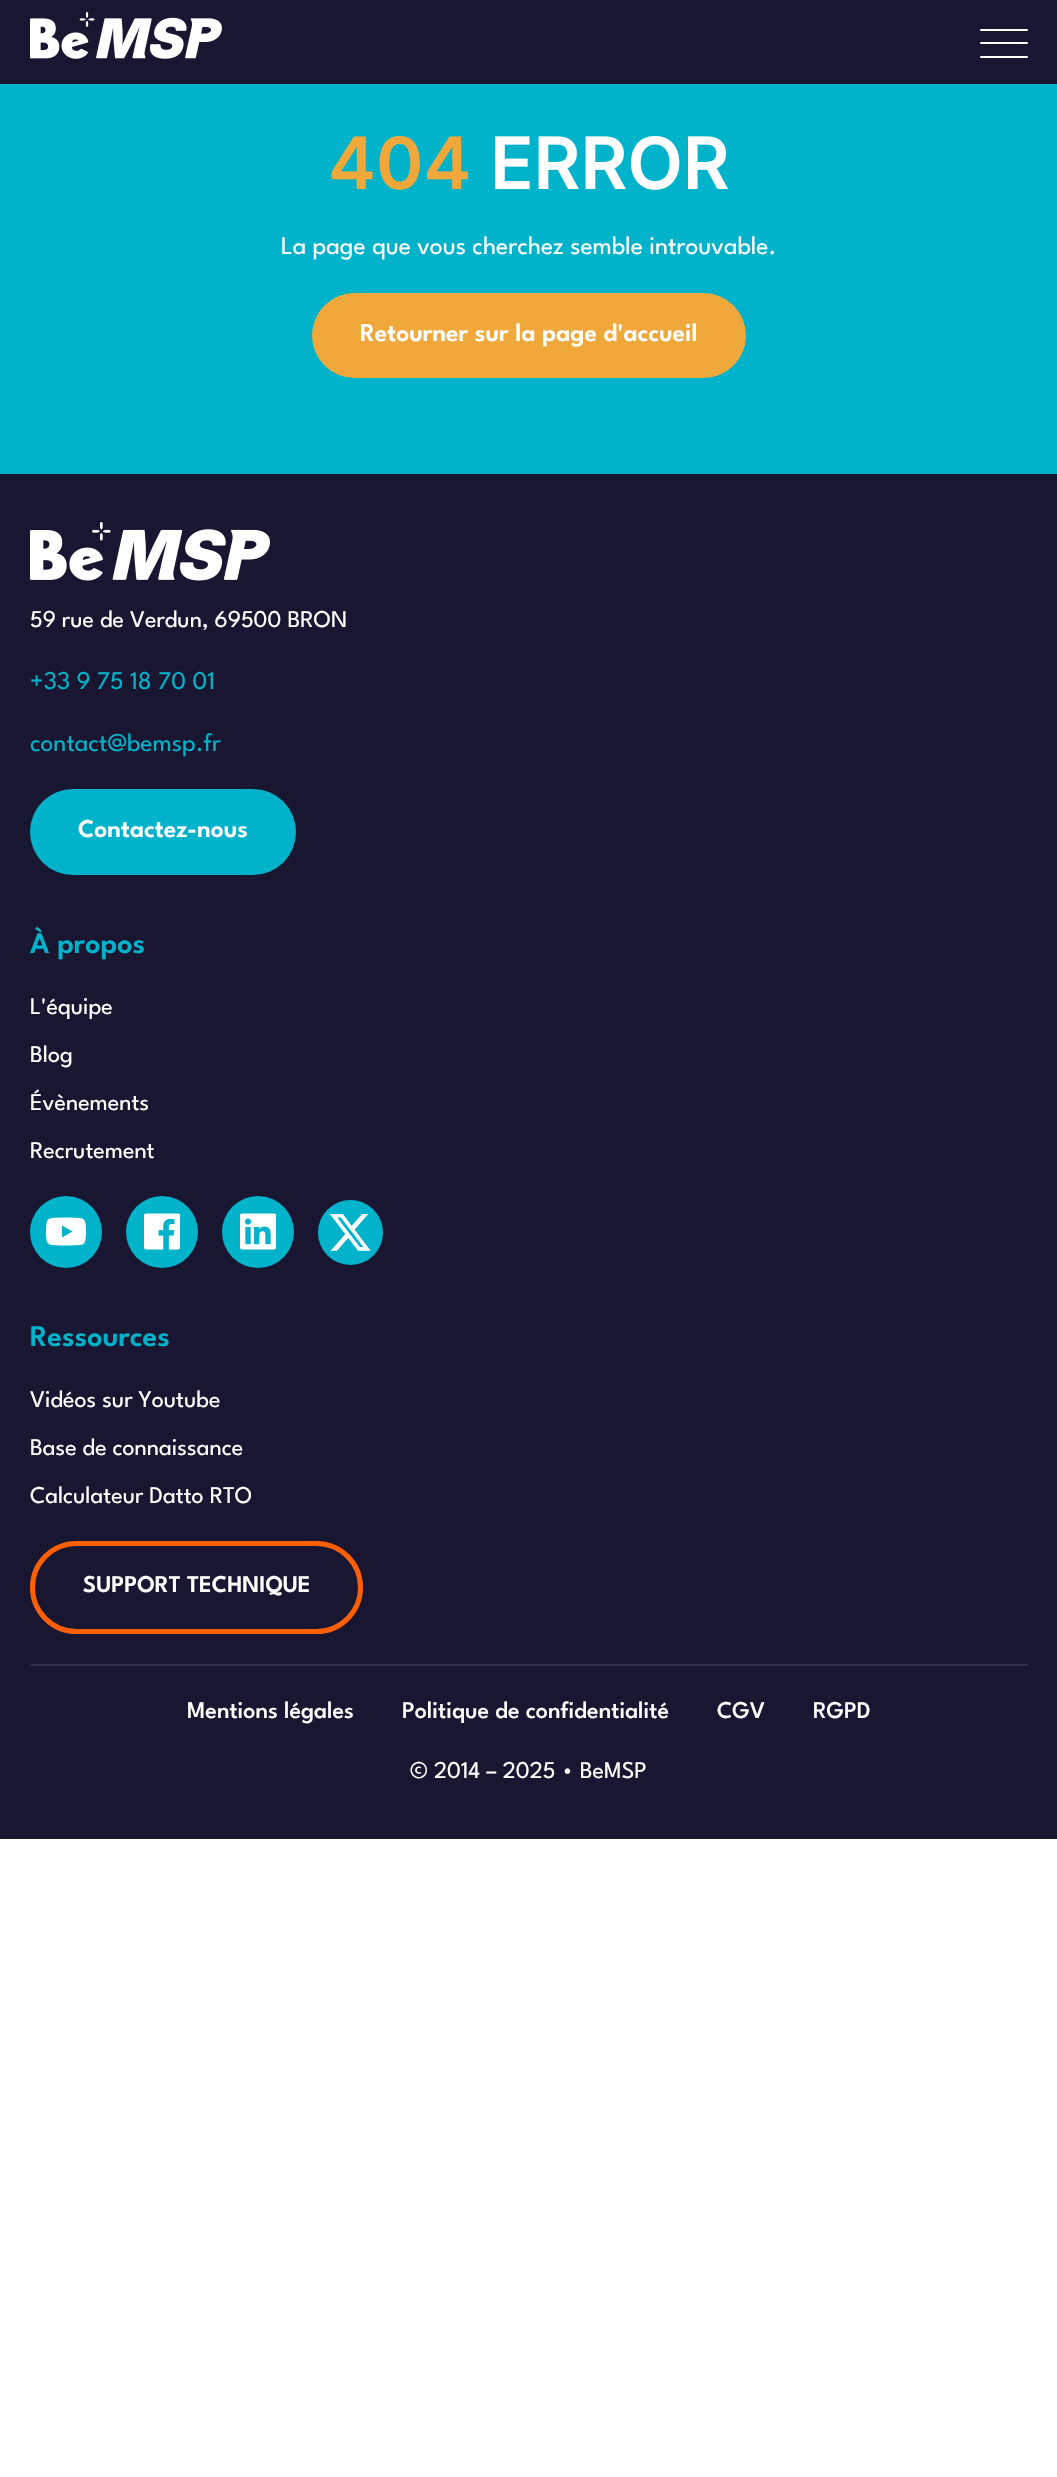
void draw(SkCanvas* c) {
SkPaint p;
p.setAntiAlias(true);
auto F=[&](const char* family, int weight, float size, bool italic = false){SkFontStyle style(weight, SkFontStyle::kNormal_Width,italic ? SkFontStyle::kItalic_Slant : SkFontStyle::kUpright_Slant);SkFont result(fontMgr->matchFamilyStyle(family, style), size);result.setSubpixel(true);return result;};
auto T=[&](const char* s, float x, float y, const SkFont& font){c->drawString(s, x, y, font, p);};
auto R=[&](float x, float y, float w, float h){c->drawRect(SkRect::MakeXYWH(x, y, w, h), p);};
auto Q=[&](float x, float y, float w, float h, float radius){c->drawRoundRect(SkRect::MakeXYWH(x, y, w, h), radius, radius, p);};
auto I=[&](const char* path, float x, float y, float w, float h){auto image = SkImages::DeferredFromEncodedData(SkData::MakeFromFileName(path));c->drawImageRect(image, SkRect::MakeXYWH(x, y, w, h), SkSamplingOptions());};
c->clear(0xffffffff);
p.setColor(0xff191631);
R(0,0,1057,84);
I("1.png",30,12,192,47);
p.setColor(0xffffffff);
Q(980,29,48,2,1);
Q(980,42,48,2,1);
Q(980,56,48,2,1);
p.setColor(0xff00b3ca);
R(0,84,1057,390);
auto f1 = F("Inter",600,72);
p.setColor(0xfff0a83a);
T("404",328,189,f1);
p.setColor(0xffffffff);
T("ERROR",490,189,f1);
auto f2 = F("League Spartan",400,25.5);
T("La page que vous cherchez semble introuvable.",281,254,f2);
p.setColor(0xfff0a83a);
Q(312,293,434,85,42.5);
auto f3 = F("League Spartan",600,25.5);
p.setColor(0xffffffff);
T("Retourner sur la page d'accueil",360,341,f3);
p.setColor(0xff191631);
R(0,474,1057,1365);
I("2.png",30,522,240,59);
auto f4 = F("League Spartan",400,24);
p.setColor(0xffffffff);
T("59 rue de Verdun, 69500 BRON",30,627,f4);
p.setColor(0xff00b3ca);
T("+33 9 75 18 70 01",30,689,f2);
T("contact@bemsp.fr",30,751,f2);
Q(30,789,266,86,43);
p.setColor(0xffffffff);
T("Contactez-nous",78,837,f3);
auto f5 = F("League Spartan",600,30);
p.setColor(0xff00b3ca);
T("À propos",30,953,f5);
p.setColor(0xffffffff);
T("L'équipe",30,1014,f4);
T("Blog",30,1062,f4);
T("Évènements",30,1110,f4);
T("Recrutement",30,1158,f4);
p.setColor(0xff00b3ca);
c->drawCircle(66,1232,36,p);
I("3.png",46,1217,40,29);
c->drawCircle(162,1232,36,p);
I("4.png",144,1213,36,37);
c->drawCircle(258,1232,36,p);
I("5.png",240,1213,36,37);
c->drawCircle(350.5,1232.5,32.5,p);
I("6.png",330,1214,41,37);
T("Ressources",30,1346,f5);
p.setColor(0xffffffff);
T("Vidéos sur Youtube",30,1407,f4);
T("Base de connaissance",30,1455,f4);
T("Calculateur Datto RTO",30,1503,f4);
p.setStroke(true);
p.setStrokeWidth(5);
p.setColor(0xffff5f00);
c->drawRoundRect(SkRect::MakeXYWH(32.5,1543.5,328,88),44,44,p);
auto f6 = F("League Spartan",600,24);
p.setStroke(false);
p.setColor(0xffffffff);
T("SUPPORT TECHNIQUE",83,1592,f6);
p.setColor(0xff302d46);
R(30,1664,998,2);
auto f7 = F("League Spartan",500,24);
p.setColor(0xffffffff);
T("Mentions légales",187,1718,f7);
T("Politique de confidentialité",402,1718,f7);
T("CGV",717,1718,f7);
T("RGPD",813,1718,f7);
T("© 2014 – 2025 • BeMSP",410,1778,f4);
}
